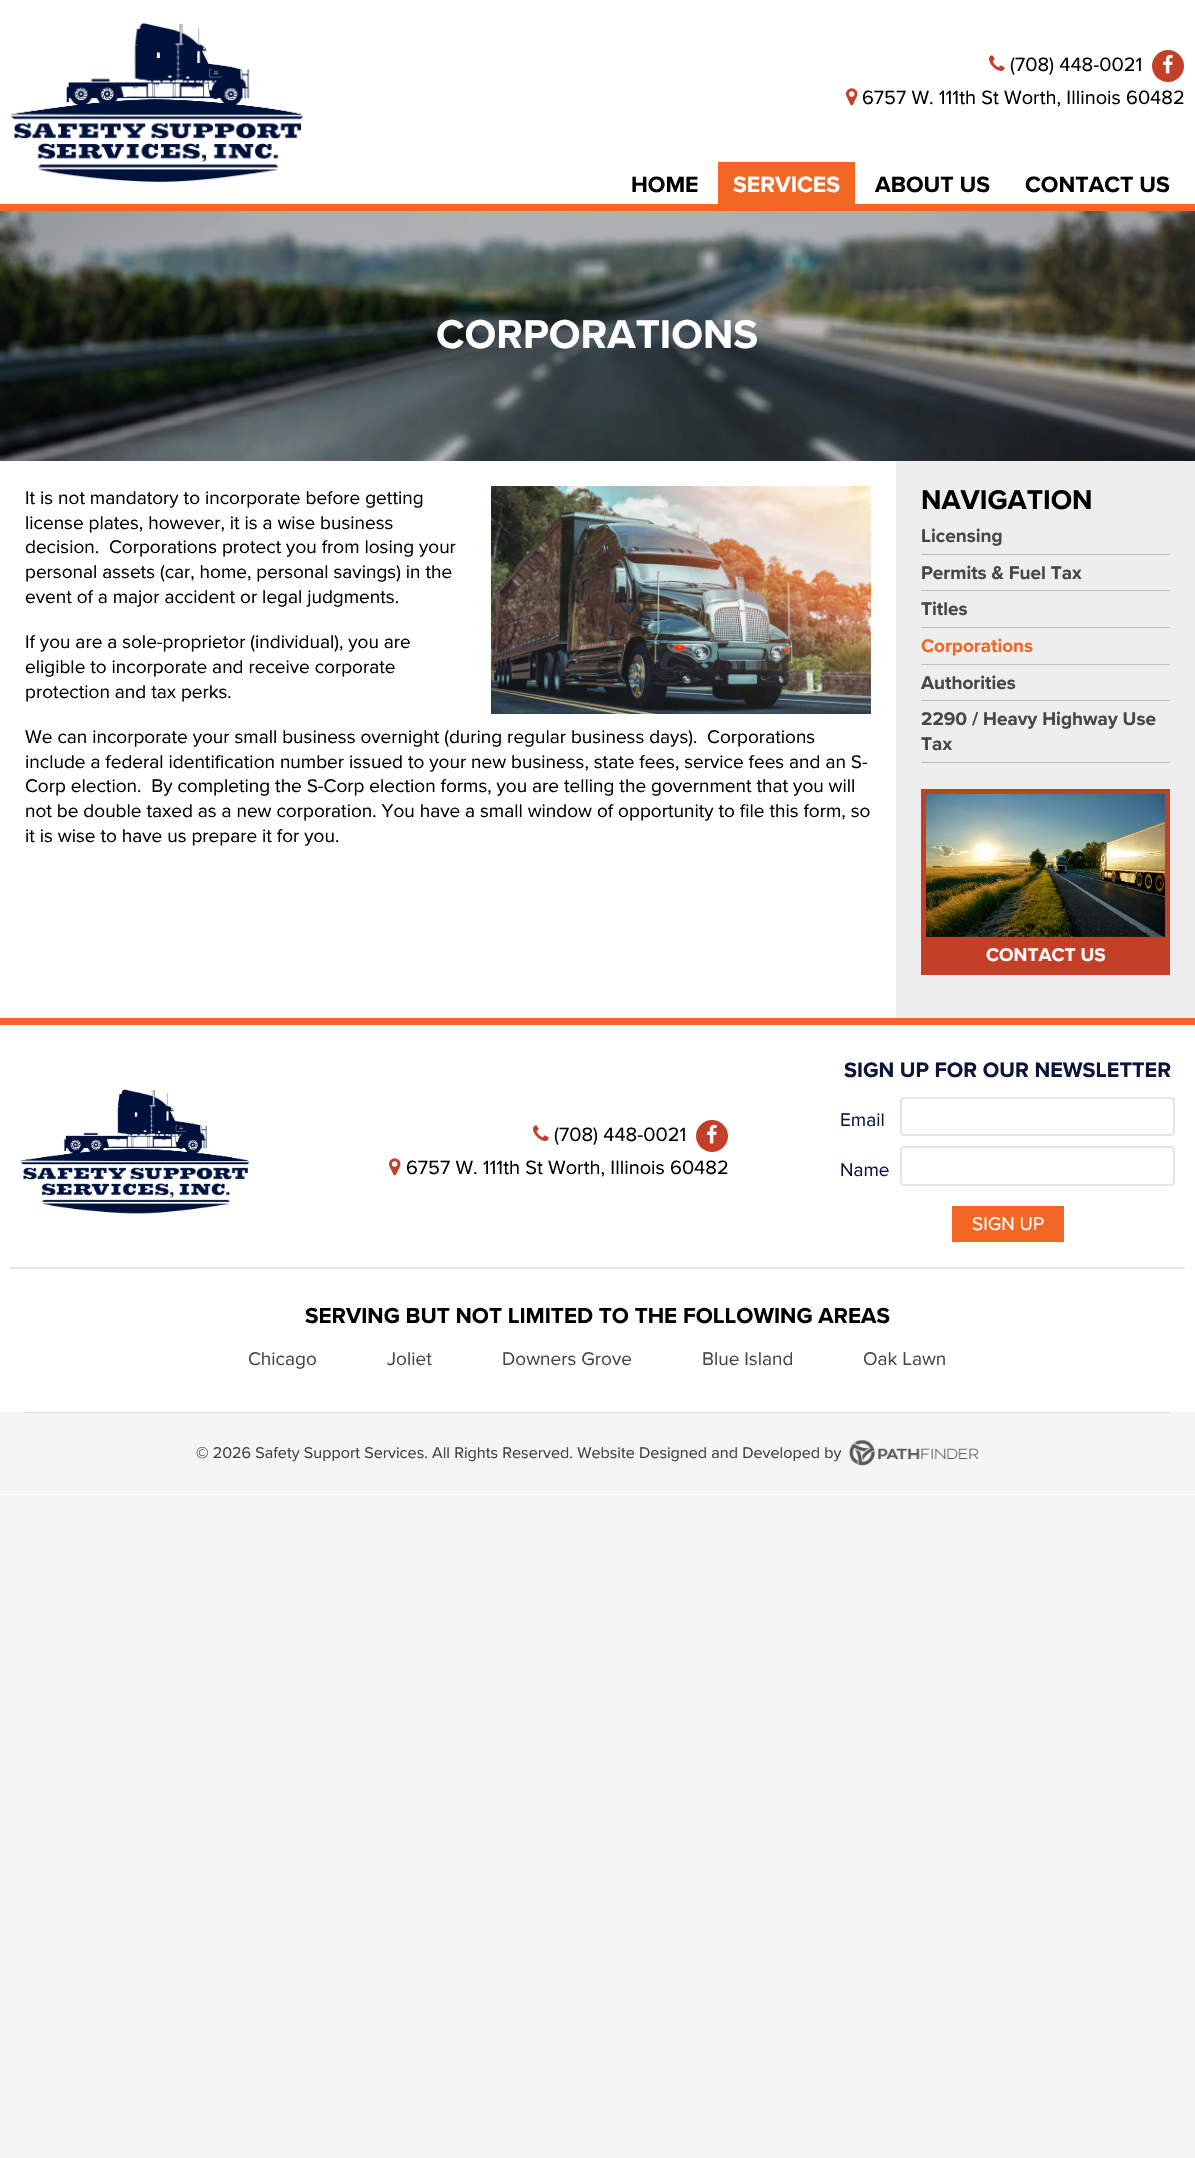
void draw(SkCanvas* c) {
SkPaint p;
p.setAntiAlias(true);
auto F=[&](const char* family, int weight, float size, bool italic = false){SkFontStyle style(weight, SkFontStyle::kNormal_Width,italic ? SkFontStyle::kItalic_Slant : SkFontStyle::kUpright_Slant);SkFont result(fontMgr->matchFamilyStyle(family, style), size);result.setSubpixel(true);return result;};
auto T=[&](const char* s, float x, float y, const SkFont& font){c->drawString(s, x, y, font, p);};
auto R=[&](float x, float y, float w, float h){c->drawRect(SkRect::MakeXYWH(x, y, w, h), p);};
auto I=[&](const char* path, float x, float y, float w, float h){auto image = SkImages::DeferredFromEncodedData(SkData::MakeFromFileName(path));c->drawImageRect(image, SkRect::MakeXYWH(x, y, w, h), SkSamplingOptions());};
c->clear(0xfff5f5f5);
p.setColor(0xffffffff);
R(0,0,1195,204);
p.setColor(0xfff26724);
R(0,204,1195,7);
I("1.png",10,23,294,160);
I("2.png",989,55,16,16);
auto f1 = F("Proxima Nova",400,20);
p.setColor(0xff000000);
T("(708) 448-0021",1010,71,f1);
p.setColor(0xffc33f28);
c->drawCircle(1168,66,16,p);
I("3.png",1163,54,10,20);
I("4.png",846,88,12,18);
p.setColor(0xff000000);
T("6757 W. 111th St Worth, Illinois 60482",862,104,f1);
auto f2 = F("Proxima Nova",700,23);
T("HOME",631,192,f2);
p.setColor(0xfff26724);
R(718,162,137,42);
p.setColor(0xffffffff);
T("SERVICES",733,192,f2);
p.setColor(0xff000000);
T("ABOUT US",875,192,f2);
T("CONTACT US",1025,192,f2);
I("5.png",0,211,1195,250);
auto f3 = F("Proxima Nova",700,41.5);
p.setColor(0xffffffff);
T("CORPORATIONS",436,348,f3);
R(0,461,896,557);
p.setColor(0xfff26724);
R(0,1018,1195,7);
auto f4 = F("Proxima Nova",400,19);
p.setColor(0xff000000);
T("It is not mandatory to incorporate before getting",25,504,f4);
I("6.png",491,486,380,228);
T("license plates, however, it is a wise business",25,529,f4);
T("decision.  Corporations protect you from losing your",25,553,f4);
T("personal assets (car, home, personal savings) in the",25,578,f4);
T("event of a major accident or legal judgments.",25,603,f4);
T("If you are a sole-proprietor (individual), you are",25,648,f4);
T("eligible to incorporate and receive corporate",25,673,f4);
T("protection and tax perks.",25,698,f4);
T("We can incorporate your small business overnight (during regular business days).  Corporations",25,743,f4);
T("include a federal identification number issued to your new business, state fees, service fees and an S-",25,768,f4);
T("Corp election.  By completing the S-Corp election forms, you are telling the government that you will",25,792,f4);
T("not be double taxed as a new corporation. You have a small window of opportunity to file this form, so",25,817,f4);
T("it is wise to have us prepare it for you.",25,842,f4);
p.setColor(0xffeeeeee);
R(896,461,299,557);
auto f5 = F("Proxima Nova",700,28);
p.setColor(0xff000000);
T("NAVIGATION",921,509,f5);
p.setColor(0xffbebebe);
R(921,554,249,1);
auto f6 = F("Proxima Nova",700,19);
p.setColor(0xff464646);
T("Licensing",921,542,f6);
p.setColor(0xffbebebe);
R(921,590,249,1);
p.setColor(0xff464646);
T("Permits & Fuel Tax",921,579,f6);
p.setColor(0xffbebebe);
R(921,627,249,1);
p.setColor(0xff464646);
T("Titles",921,615,f6);
p.setColor(0xffbebebe);
R(921,664,249,1);
p.setColor(0xfff26724);
T("Corporations",921,652,f6);
p.setColor(0xffbebebe);
R(921,700,249,1);
p.setColor(0xff464646);
T("Authorities",921,689,f6);
p.setColor(0xffbebebe);
R(921,762,249,1);
p.setColor(0xff464646);
T("2290 / Heavy Highway Use",921,725,f6);
T("Tax",921,750,f6);
p.setColor(0xffc33f28);
R(921,789,249,186);
I("7.png",926,793,239,144);
p.setColor(0xffffffff);
T("CONTACT US",986,961,f6);
R(0,1025,1195,387);
I("8.png",20,1089,230,125);
I("2.png",533,1125,16,16);
p.setColor(0xff000000);
T("(708) 448-0021",554,1141,f1);
p.setColor(0xffc33f28);
c->drawCircle(712,1136,16,p);
I("3.png",707,1124,10,20);
I("4.png",389,1158,12,18);
p.setColor(0xff000000);
T("6757 W. 111th St Worth, Illinois 60482",406,1174,f1);
auto f7 = F("Proxima Nova",700,21.6);
p.setColor(0xff0c143b);
T("SIGN UP FOR OUR NEWSLETTER",844,1077,f7);
T("Email",840,1126,f4);
p.setStroke(true);
p.setStrokeWidth(2);
p.setColor(0xffe6e6e6);
c->drawRoundRect(SkRect::MakeXYWH(901,1098,273,37),3,3,p);
p.setStroke(false);
p.setColor(0xff0c143b);
T("Name",840,1176,f4);
p.setStroke(true);
p.setColor(0xffe6e6e6);
c->drawRoundRect(SkRect::MakeXYWH(901,1147,273,38),3,3,p);
p.setStroke(false);
p.setColor(0xfff26724);
R(952,1206,112,36);
p.setColor(0xffffffff);
T("SIGN UP",972,1230,f4);
p.setColor(0xffe8e8e8);
R(10,1267,1175,2);
auto f8 = F("Proxima Nova",700,22.4);
p.setColor(0xff000000);
T("SERVING BUT NOT LIMITED TO THE FOLLOWING AREAS",305,1323,f8);
p.setColor(0xff464646);
T("Chicago",248,1365,f4);
T("Joliet",387,1365,f4);
T("Downers Grove",502,1365,f4);
T("Blue Island",702,1365,f4);
T("Oak Lawn",863,1365,f4);
p.setColor(0xfffdfdfd);
R(0,1494,1195,1);
p.setColor(0xffdddddd);
R(25,1412,1145,1);
auto f9 = F("Proxima Nova",400,16.15);
p.setColor(0xff3a4045);
T("© 2026 Safety Support Services. All Rights Reserved. Website Designed and Developed by",196,1458,f9);
I("9.png",849,1440,130,26);
}
